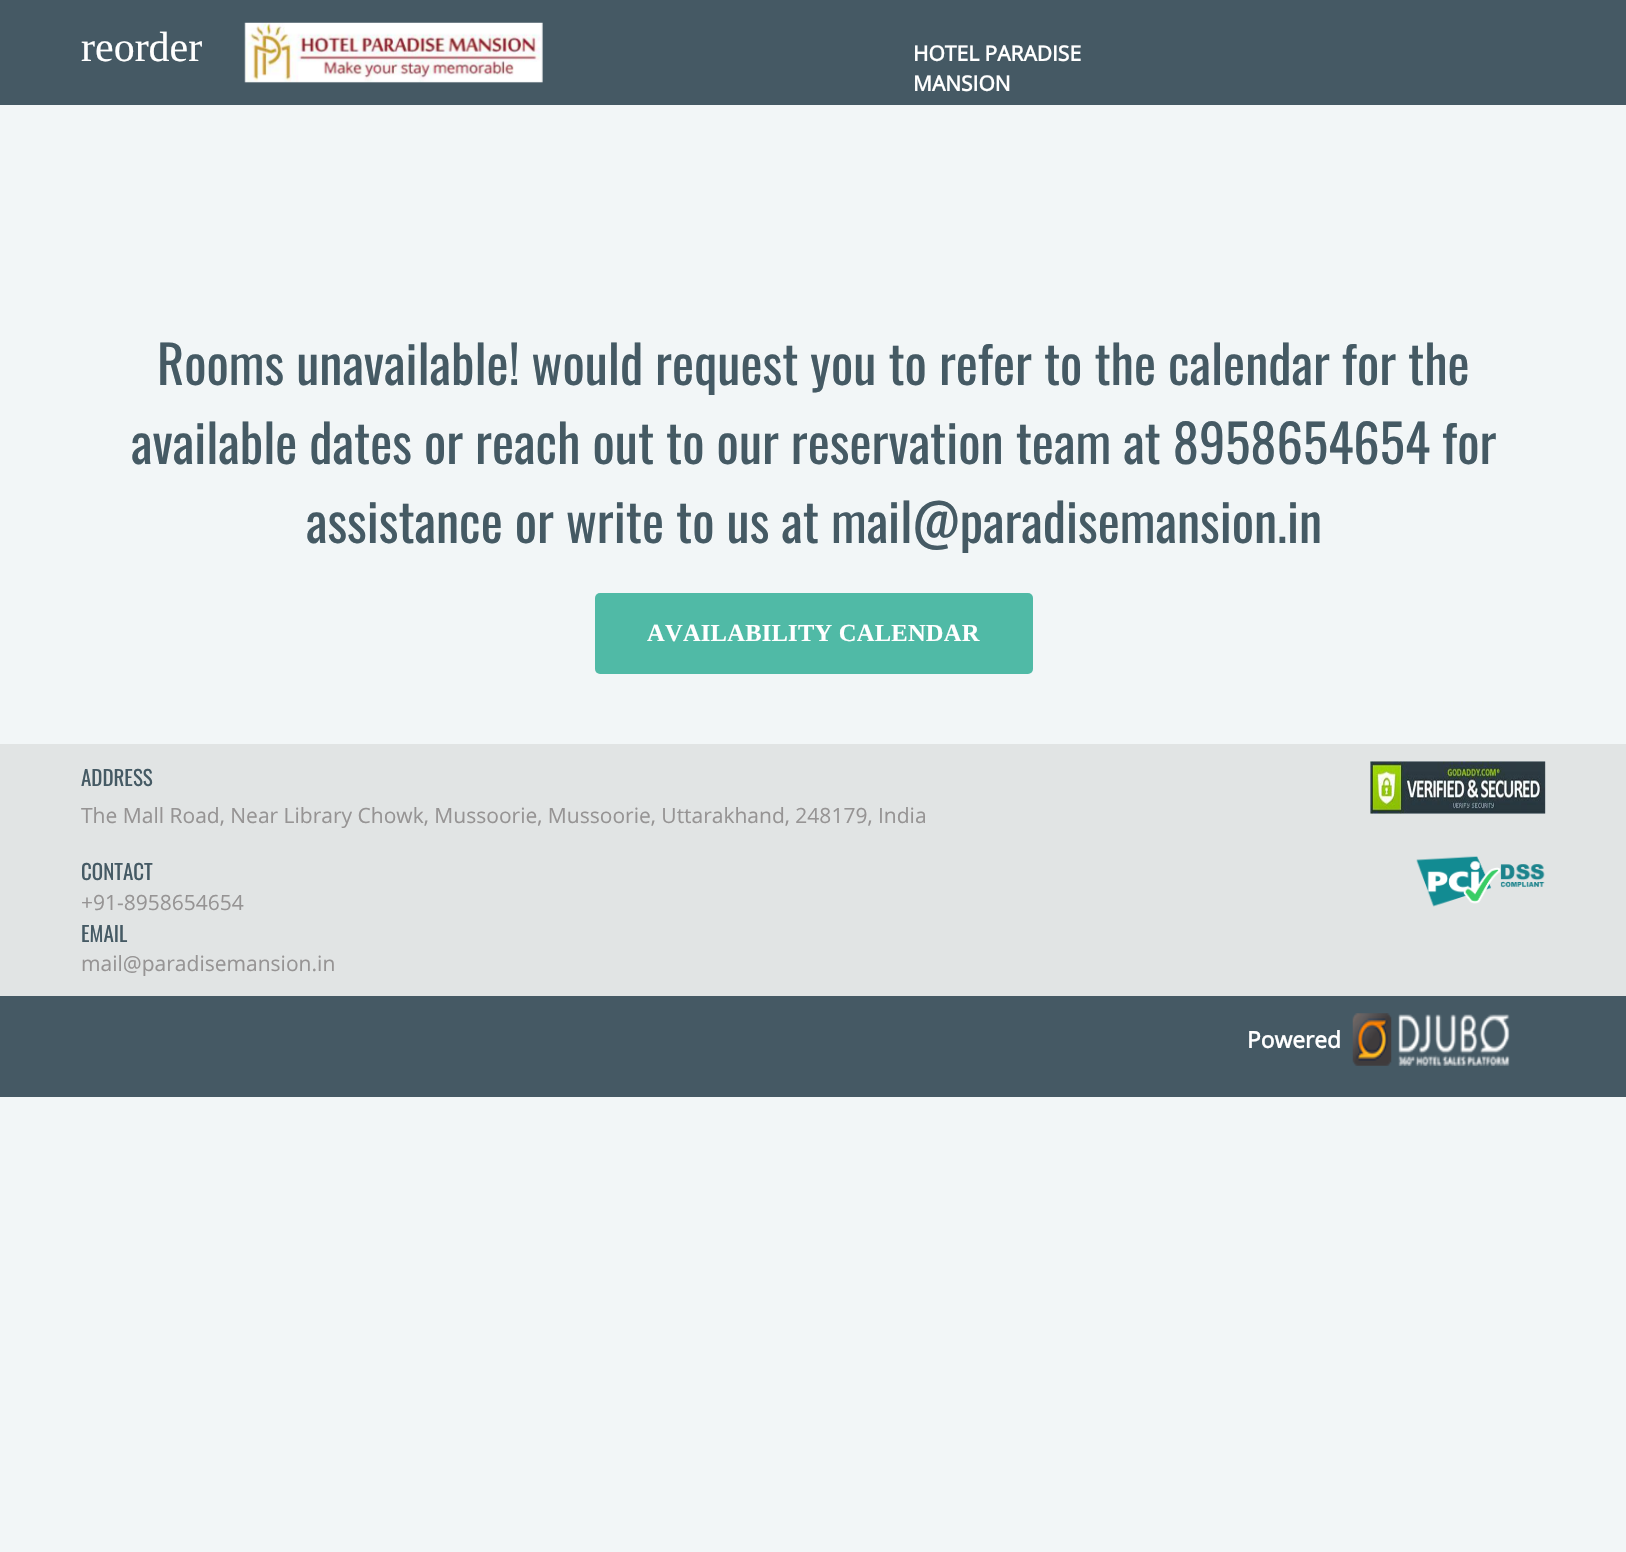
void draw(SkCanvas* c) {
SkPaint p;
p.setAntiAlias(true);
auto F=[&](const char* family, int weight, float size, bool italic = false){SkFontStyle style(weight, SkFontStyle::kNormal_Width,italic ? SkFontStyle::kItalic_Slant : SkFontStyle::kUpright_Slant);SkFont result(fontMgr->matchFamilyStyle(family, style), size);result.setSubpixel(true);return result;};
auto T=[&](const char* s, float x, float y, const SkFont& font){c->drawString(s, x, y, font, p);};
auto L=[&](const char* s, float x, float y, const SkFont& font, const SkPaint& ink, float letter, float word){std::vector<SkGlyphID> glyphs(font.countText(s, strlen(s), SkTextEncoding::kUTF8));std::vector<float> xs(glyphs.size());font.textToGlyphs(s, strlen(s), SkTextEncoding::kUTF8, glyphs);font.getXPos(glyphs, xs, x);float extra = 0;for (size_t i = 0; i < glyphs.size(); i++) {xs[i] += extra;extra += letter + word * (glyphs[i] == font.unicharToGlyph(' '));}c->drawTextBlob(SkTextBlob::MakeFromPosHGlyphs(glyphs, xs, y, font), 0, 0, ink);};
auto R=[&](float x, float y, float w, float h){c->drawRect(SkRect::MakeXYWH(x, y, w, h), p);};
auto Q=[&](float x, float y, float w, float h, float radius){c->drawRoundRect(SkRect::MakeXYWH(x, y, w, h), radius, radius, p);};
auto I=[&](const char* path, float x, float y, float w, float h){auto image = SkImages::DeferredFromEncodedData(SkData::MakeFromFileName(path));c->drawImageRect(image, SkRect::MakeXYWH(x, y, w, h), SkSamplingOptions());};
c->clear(0xfff2f6f7);
p.setColor(0xff455964);
R(0,0,1626,105);
auto f1 = F("Liberation Serif",400,42);
p.setColor(0xffffffff);
T("reorder",81,61,f1);
I("1.png",244,22,299,61);
auto f2 = F("Open Sans",700,21);
T("HOTEL PARADISE",913,61,f2);
T("MANSION",913,91,f2);
auto f3 = F("Oswald",400,52.5);
p.setColor(0xff455a64);
T("Rooms unavailable! would request you to refer to the calendar for the",157,385,f3);
T("available dates or reach out to our reservation team at 8958654654 for",131,464,f3);
T("assistance or write to us at mail@paradisemansion.in",306,543,f3);
p.setColor(0xff50baa6);
Q(595,593,438,81,5);
auto f4 = F("Liberation Serif",700,24.5);
p.setColor(0xffffffff);
L("AVAILABILITY CALENDAR",647,641,f4,p,.25,0);
p.setColor(0xffe1e4e4);
R(0,744,1626,252);
auto f5 = F("Oswald",400,21);
p.setColor(0xff455a64);
T("ADDRESS",81,786,f5);
auto f6 = F("Open Sans",400,21);
p.setColor(0xff969494);
T("The Mall Road, Near Library Chowk, Mussoorie, Mussoorie, Uttarakhand, 248179, India",81,823,f6);
I("2.png",1370,761,176,53);
p.setColor(0xff455a64);
T("CONTACT",81,880,f5);
p.setColor(0xff969494);
T("+91-8958654654",81,910,f6);
p.setColor(0xff455a64);
T("EMAIL",81,942,f5);
p.setColor(0xff969494);
T("mail@paradisemansion.in",81,971,f6);
I("3.png",1416,856,129,51);
p.setColor(0xff455964);
R(0,996,1626,101);
auto f7 = F("Open Sans",700,22.75);
p.setColor(0xffffffff);
T("Powered",1247,1048,f7);
I("4.png",1352,1013,158,53);
}
